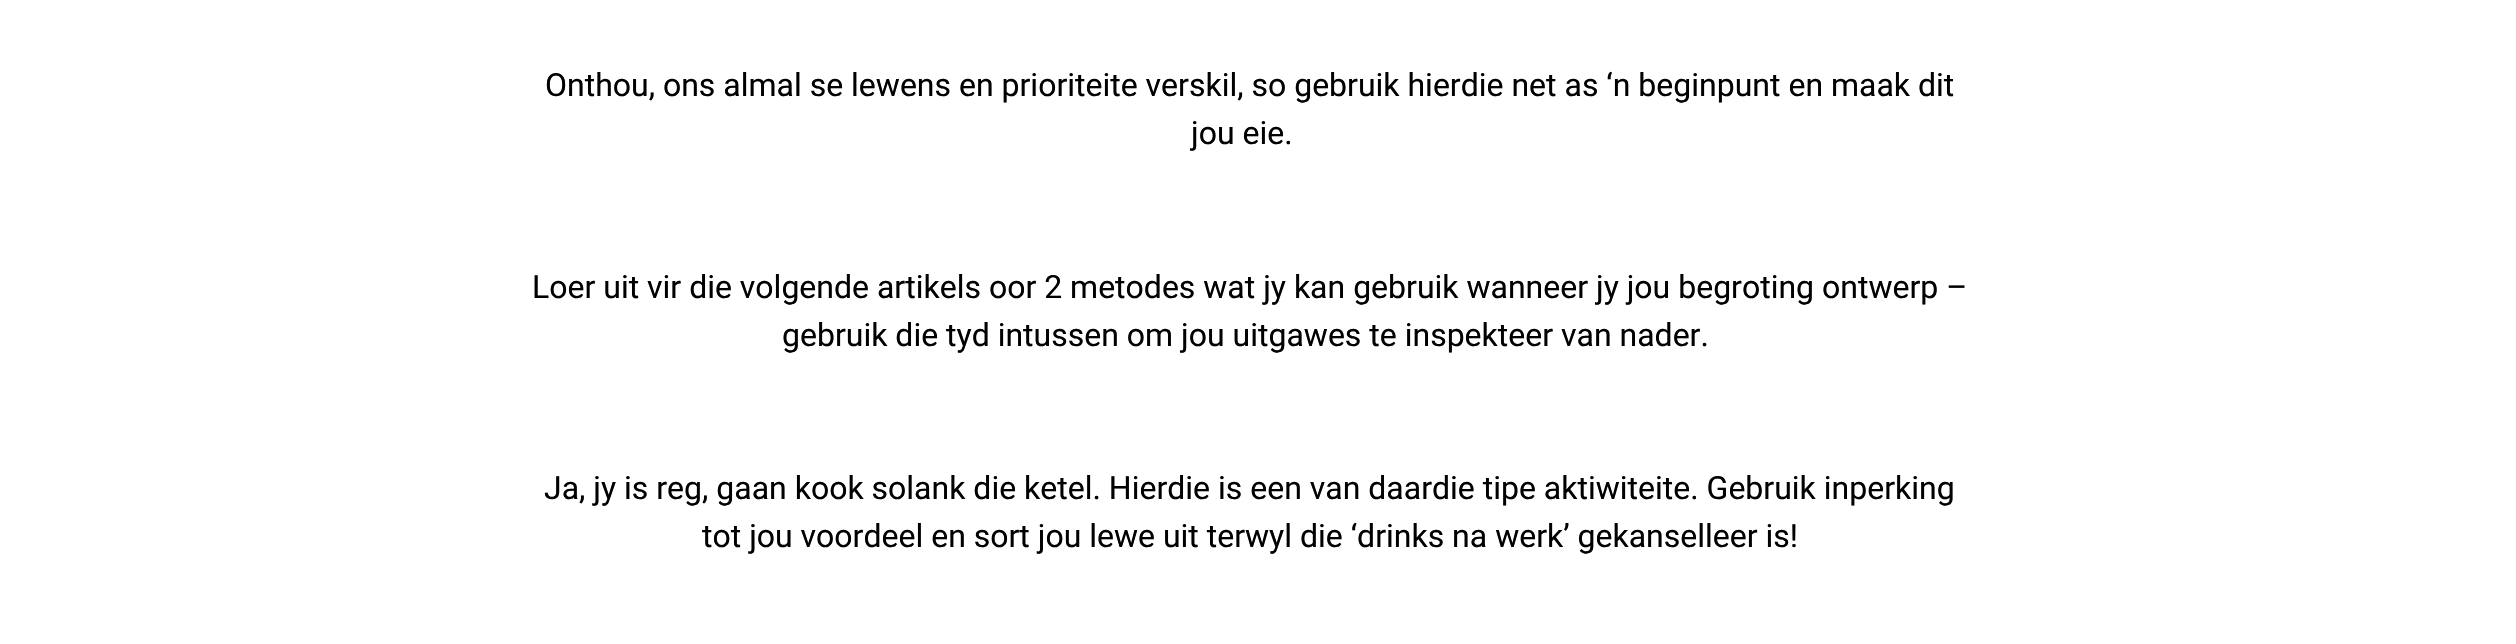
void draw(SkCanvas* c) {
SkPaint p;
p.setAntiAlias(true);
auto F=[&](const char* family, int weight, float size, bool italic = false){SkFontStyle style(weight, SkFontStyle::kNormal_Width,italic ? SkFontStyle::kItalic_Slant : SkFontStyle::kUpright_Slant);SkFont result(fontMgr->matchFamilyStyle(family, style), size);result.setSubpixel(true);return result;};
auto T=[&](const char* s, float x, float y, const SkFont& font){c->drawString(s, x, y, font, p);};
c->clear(0xffffffff);
auto f1 = F("Roboto",400,32);
p.setColor(0xff000000);
T("Onthou, ons almal se lewens en prioriteite verskil, so gebruik hierdie net as ‘n beginpunt en maak dit",545,96,f1);
T("jou eie.",1191,144,f1);
T("Loer uit vir die volgende artikels oor 2 metodes wat jy kan gebruik wanneer jy jou begroting ontwerp –",532,298,f1);
T("gebruik die tyd intussen om jou uitgawes te inspekteer van nader.",782,346,f1);
T("Ja, jy is reg, gaan kook solank die ketel. Hierdie is een van daardie tipe aktiwiteite. Gebruik inperking",544,499,f1);
T("tot jou voordeel en sort jou lewe uit terwyl die ‘drinks na werk’ gekanselleer is!",702,547,f1);
}
